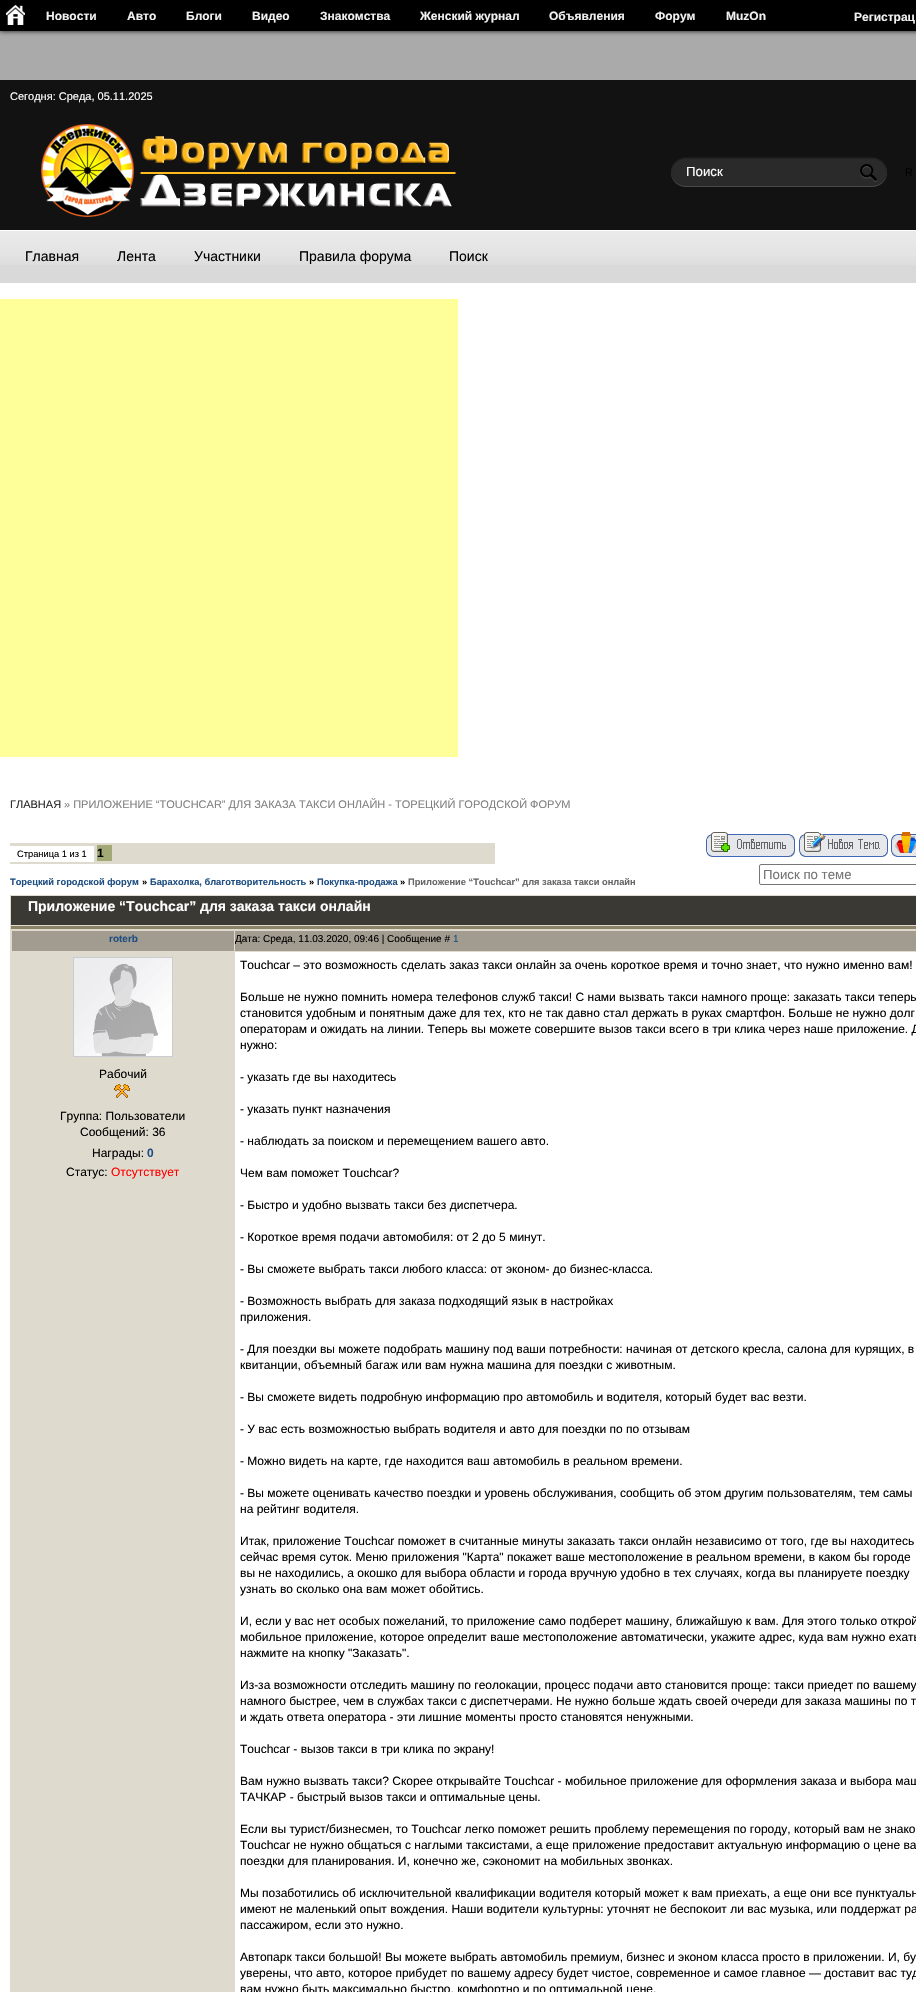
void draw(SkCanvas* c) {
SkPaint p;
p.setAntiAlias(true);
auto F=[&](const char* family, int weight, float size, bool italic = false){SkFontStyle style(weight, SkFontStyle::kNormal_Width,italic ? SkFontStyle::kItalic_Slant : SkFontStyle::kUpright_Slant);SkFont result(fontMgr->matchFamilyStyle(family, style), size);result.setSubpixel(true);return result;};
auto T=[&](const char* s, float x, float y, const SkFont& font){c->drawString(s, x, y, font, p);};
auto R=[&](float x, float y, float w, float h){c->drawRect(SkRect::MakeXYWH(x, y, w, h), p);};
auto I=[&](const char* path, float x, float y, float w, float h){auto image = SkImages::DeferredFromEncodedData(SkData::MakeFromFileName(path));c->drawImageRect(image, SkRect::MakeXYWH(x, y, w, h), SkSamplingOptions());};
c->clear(0xffaaaaaa);
p.setColor(0xff111111);
p.setMaskFilter(SkMaskFilter::MakeBlur(kNormal_SkBlurStyle, 2.5));
c->drawRect(SkRect::MakeXYWH(0,0,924,31),p);
p.setMaskFilter(nullptr);
p.setColor(0xff000000);
R(0,0,916,31);
I("1.png",6,5,19,20);
auto f1 = F("Liberation Sans",700,12);
p.setColor(0xfff1f1f1);
T("Новости",46,20,f1);
T("Авто",127,20,f1);
T("Блоги",186,20,f1);
T("Видео",252,20,f1);
T("Знакомства",320,20,f1);
T("Женский журнал",420,20,f1);
T("Объявления",549,20,f1);
T("Форум",655,20,f1);
T("MuzOn",726,20,f1);
T("Регистрац",854,21,f1);
p.setColor(0xffffffff);
R(0,283,916,1709);
p.setColor(0xff121212);
R(0,80,916,150);
auto f2 = F("Liberation Sans",400,11);
p.setColor(0xffffffff);
T("Сегодня: Среда, 05.11.2025",10,100,f2);
I("2.png",41,124,415,93);
I("3.png",671,157,15,30);
I("4.png",686,157,174,30);
auto f3 = F("Liberation Sans",400,13.25);
T("Поиск",686,176,f3);
I("5.png",860,157,27,30);
I("6.png",860,164,17,18);
p.setColor(0xff000000);
T("R",905,176,f2);
p.setColor(0xffd9d9d9);
R(0,265,916,18);
I("7.png",0,230,916,35);
auto f4 = F("Liberation Sans",400,14);
p.setColor(0xff000000);
T("Главная",25,261,f4);
T("Лента",117,261,f4);
T("Участники",194,261,f4);
T("Правила форума",299,261,f4);
T("Поиск",449,261,f4);
p.setColor(0xffffff99);
R(0,299,458,458);
p.setColor(0xff282828);
T("ГЛАВНАЯ",10,808,f2);
p.setColor(0xff828181);
T("» ПРИЛОЖЕНИЕ “TOUCHCAR” ДЛЯ ЗАКАЗА ТАКСИ ОНЛАЙН - ТОРЕЦКИЙ ГОРОДСКОЙ ФОРУМ",64,808,f2);
p.setColor(0xffdfdace);
R(10,843,485,21);
p.setColor(0xffffffff);
R(10,846,84,16);
auto f5 = F("Liberation Sans",400,9.3);
p.setColor(0xff000000);
T("Страница 1 из 1",17,857,f5);
p.setColor(0xffa3a974);
R(97,845,15,16);
p.setColor(0xff000000);
T("1",97,857,f1);
I("8.png",706,832,89,25);
I("9.png",799,832,89,25);
I("10.png",891,832,25,25);
p.setStroke(true);
p.setStrokeWidth(1);
p.setColor(0xff767676);
c->drawRoundRect(SkRect::MakeXYWH(759.5,864.5,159,20),1.5,1.5,p);
p.setStroke(false);
p.setColor(0xff757575);
T("Поиск по теме",763,879,f3);
auto f6 = F("Liberation Sans",700,9.3);
p.setColor(0xff1f4f82);
T("Торецкий городской форум",10,885,f6);
p.setColor(0xff000000);
T("»",142,885,f6);
p.setColor(0xff1f4f82);
T("Барахолка, благотворительность",150,885,f6);
p.setColor(0xff000000);
T("»",309,885,f6);
p.setColor(0xff1f4f82);
T("Покупка-продажа",317,885,f6);
p.setColor(0xff000000);
T("»",400,885,f6);
p.setColor(0xff666666);
T("Приложение “Touchcar” для заказа такси онлайн",408,885,f6);
p.setColor(0xffdfdace);
R(10,895,906,1097);
p.setColor(0xff3b3934);
R(11,896,905,29);
auto f7 = F("Liberation Sans",700,14);
p.setColor(0xffffffff);
T("Приложение “Touchcar” для заказа такси онлайн",28,911,f7);
p.setColor(0xff8c8368);
R(11,926,905,3);
p.setColor(0xffa29c90);
R(12,931,222,20);
auto f8 = F("Liberation Sans",700,10);
p.setColor(0xff1f4f82);
T("roterb",109,942,f8);
p.setColor(0xffa29c90);
R(235,931,681,20);
auto f9 = F("Liberation Sans",400,10);
p.setColor(0xff000000);
T("Дата: Среда, 11.03.2020, 09:46 | Сообщение #",235,942,f9);
p.setColor(0xff1f4f82);
T("1",453,942,f9);
I("11.png",73,957,100,100);
auto f10 = F("Liberation Sans",400,12);
p.setColor(0xff000000);
T("Рабочий",99,1078,f10);
I("12.png",114,1084,16,14);
T("Группа: Пользователи",60,1120,f10);
T("Сообщений: 36",80,1136,f10);
T("Награды:",92,1157,f10);
p.setColor(0xff1f4f82);
T("0",147,1157,f1);
p.setColor(0xff000000);
T("Статус:",66,1176,f10);
p.setColor(0xffff0000);
T("Отсутствует",111,1176,f10);
p.setColor(0xffffffff);
R(235,952,681,1040);
p.setColor(0xff000000);
T("Touchcar – это возможность сделать заказ такси онлайн за очень короткое время и точно знает, что нужно именно вам!",240,969,f10);
T("Больше не нужно помнить номера телефонов служб такси! С нами вызвать такси намного проще: заказать такси теперь",240,1001,f10);
T("становится удобным и понятным даже для тех, кто не так давно стал держать в руках смартфон. Больше не нужно долг",240,1017,f10);
T("операторам и ожидать на линии. Теперь вы можете совершите вызов такси всего в три клика через наше приложение. Д",240,1033,f10);
T("нужно:",240,1049,f10);
T("- указать где вы находитесь",240,1081,f10);
T("- указать пункт назначения",240,1113,f10);
T("- наблюдать за поиском и перемещением вашего авто.",240,1145,f10);
T("Чем вам поможет Touchcar?",240,1177,f10);
T("- Быстро и удобно вызвать такси без диспетчера.",240,1209,f10);
T("- Короткое время подачи автомобиля: от 2 до 5 минут.",240,1241,f10);
T("- Вы сможете выбрать такси любого класса: от эконом- до бизнес-класса.",240,1273,f10);
T("- Возможность выбрать для заказа подходящий язык в настройках",240,1305,f10);
T("приложения.",240,1321,f10);
T("- Для поездки вы можете подобрать машину под ваши потребности: начиная от детского кресла, салона для курящих, в",240,1353,f10);
T("квитанции, объемный багаж или вам нужна машина для поездки с животным.",240,1369,f10);
T("- Вы сможете видеть подробную информацию про автомобиль и водителя, который будет вас везти.",240,1401,f10);
T("- У вас есть возможностью выбрать водителя и авто для поездки по по отзывам",240,1433,f10);
T("- Можно видеть на карте, где находится ваш автомобиль в реальном времени.",240,1465,f10);
T("- Вы можете оценивать качество поездки и уровень обслуживания, сообщить об этом другим пользователям, тем самы",240,1497,f10);
T("на рейтинг водителя.",240,1513,f10);
T("Итак, приложение Touchcar поможет в считанные минуты заказать такси онлайн независимо от того, где вы находитесь",240,1545,f10);
T("сейчас время суток. Меню приложения \"Карта\" покажет ваше местоположение в реальном времени, в каком бы городе",240,1561,f10);
T("вы не находились, а окошко для выбора области и города вручную удобно в тех случаях, когда вы планируете поездку",240,1577,f10);
T("узнать во сколько она вам может обойтись.",240,1593,f10);
T("И, если у вас нет особых пожеланий, то приложение само подберет машину, ближайшую к вам. Для этого только открой",240,1625,f10);
T("мобильное приложение, которое определит ваше местоположение автоматически, укажите адрес, куда вам нужно ехать",240,1641,f10);
T("нажмите на кнопку \"Заказать\".",240,1657,f10);
T("Из-за возможности отследить машину по геолокации, процесс подачи авто становится проще: такси приедет по вашему",240,1689,f10);
T("намного быстрее, чем в службах такси с диспетчерами. Не нужно больше ждать своей очереди для заказа машины по т",240,1705,f10);
T("и ждать ответа оператора - эти лишние моменты просто становятся ненужными.",240,1721,f10);
T("Touchcar - вызов такси в три клика по экрану!",240,1753,f10);
T("Вам нужно вызвать такси? Скорее открывайте Touchcar - мобильное приложение для оформления заказа и выбора маш",240,1785,f10);
T("ТАЧКАР - быстрый вызов такси и оптимальные цены.",240,1801,f10);
T("Если вы турист/бизнесмен, то Touchcar легко поможет решить проблему перемещения по городу, который вам не знако",240,1833,f10);
T("Touchcar не нужно общаться с наглыми таксистами, а еще приложение предоставит актуальную информацию о цене ва",240,1849,f10);
T("поездки для планирования. И, конечно же, сэкономит на мобильных звонках.",240,1865,f10);
T("Мы позаботились об исключительной квалификации водителя который может к вам приехать, а еще они все пунктуальн",240,1897,f10);
T("имеют не маленький опыт вождения. Наши водители культурны: уточнят не беспокоит ли вас музыка, или поддержат ра",240,1913,f10);
T("пассажиром, если это нужно.",240,1929,f10);
T("Автопарк такси большой! Вы можете выбрать автомобиль премиум, бизнес и эконом класса просто в приложении. И, бу",240,1961,f10);
T("уверены, что авто, которое прибудет по вашему адресу будет чистое, современное и самое главное — доставит вас туд",240,1977,f10);
T("вам нужно быть максимально быстро, комфортно и по оптимальной цене.",240,1993,f10);
}
